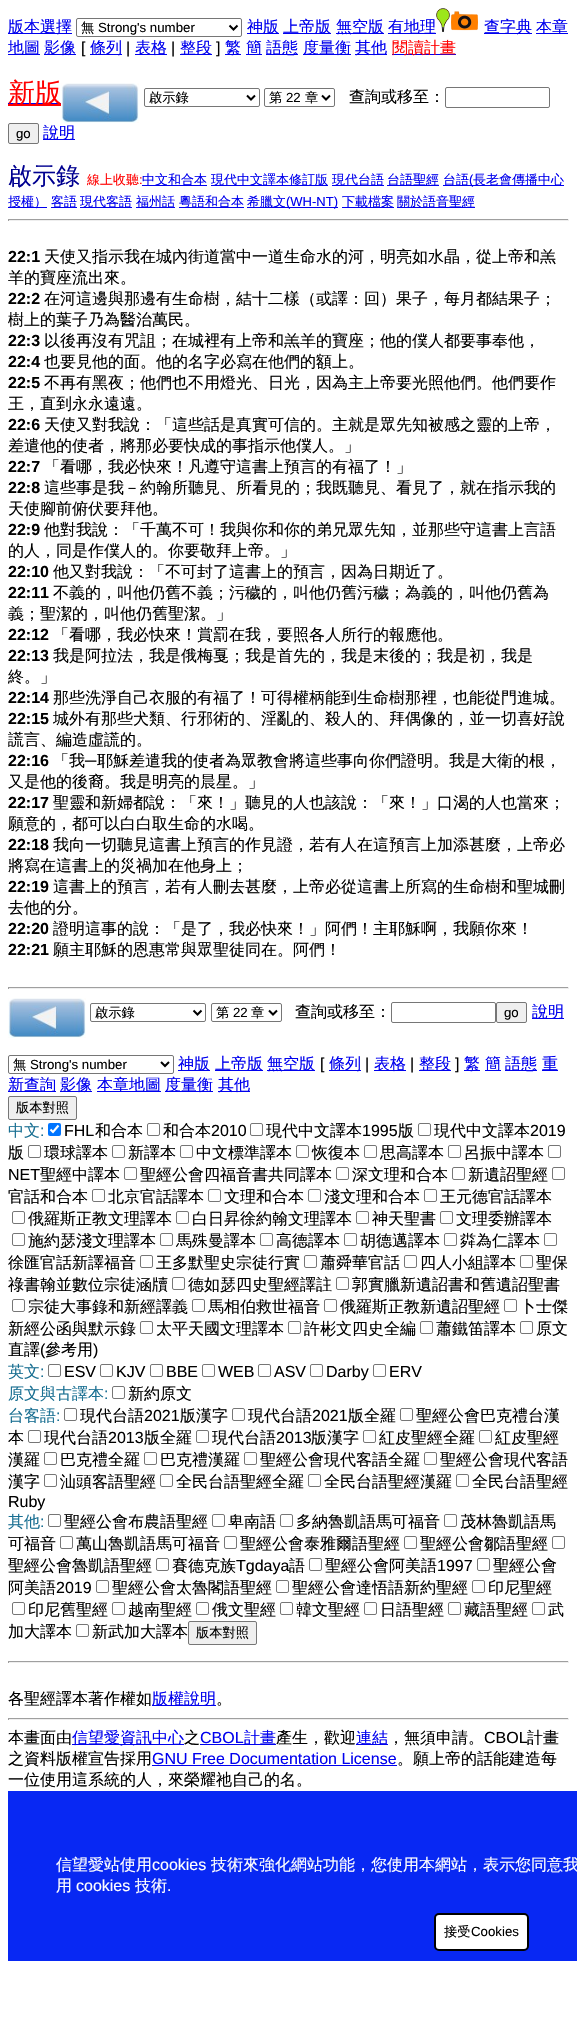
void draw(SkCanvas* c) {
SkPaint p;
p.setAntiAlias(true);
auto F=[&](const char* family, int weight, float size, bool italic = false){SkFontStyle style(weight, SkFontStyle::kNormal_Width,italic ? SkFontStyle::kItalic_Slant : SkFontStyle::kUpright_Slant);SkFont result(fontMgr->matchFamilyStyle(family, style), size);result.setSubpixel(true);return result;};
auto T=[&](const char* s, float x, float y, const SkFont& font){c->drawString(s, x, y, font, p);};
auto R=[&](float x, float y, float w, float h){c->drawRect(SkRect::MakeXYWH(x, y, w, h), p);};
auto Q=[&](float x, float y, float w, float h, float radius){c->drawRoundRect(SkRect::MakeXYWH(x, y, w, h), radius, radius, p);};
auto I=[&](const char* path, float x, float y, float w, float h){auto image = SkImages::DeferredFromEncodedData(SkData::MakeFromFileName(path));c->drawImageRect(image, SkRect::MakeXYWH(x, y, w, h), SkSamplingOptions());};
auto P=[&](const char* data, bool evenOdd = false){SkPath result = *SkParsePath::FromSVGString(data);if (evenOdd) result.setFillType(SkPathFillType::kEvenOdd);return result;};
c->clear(0xffffffff);
p.setColor(0xff0000ee);
R(8,33,64,1);
auto f1 = F("WenQuanYi Zen Hei",500,16);
T("版本選擇",8,32,f1);
p.setStroke(true);
p.setStrokeWidth(1);
p.setColor(0xff767676);
c->drawRoundRect(SkRect::MakeXYWH(76.5,18.5,165,18),1.5,1.5,p);
p.setStrokeWidth(2);
p.setColor(0xff000000);
c->drawPath(P("M229.5 25.5l4 4l4-4"),p);
auto f2 = F("WenQuanYi Zen Hei",500,13.25);
p.setStroke(false);
T("無",81,32,f2);
auto f3 = F("Liberation Sans",400,13.25);
T("Strong's number",98,32,f3);
p.setColor(0xff0000ee);
R(247,33,32,1);
T("神版",247,32,f1);
R(283,33,48,1);
T("上帝版",283,32,f1);
R(336,33,48,1);
T("無空版",336,32,f1);
R(388,33,48,1);
T("有地理",388,32,f1);
I("1.png",436,8,14,24);
I("2.png",451,11,27,20);
R(484,33,48,1);
T("查字典",484,32,f1);
R(536,33,32,1);
T("本章",536,32,f1);
R(8,54,32,1);
T("地圖",8,53,f1);
R(44,54,32,1);
T("影像",44,53,f1);
auto f4 = F("Liberation Sans",400,16);
p.setColor(0xff000000);
T("[",81,53,f4);
p.setColor(0xff0000ee);
R(90,54,32,1);
T("條列",90,53,f1);
p.setColor(0xff000000);
T("|",126,53,f4);
p.setColor(0xff0000ee);
R(135,54,32,1);
T("表格",135,53,f1);
p.setColor(0xff000000);
T("|",171,53,f4);
p.setColor(0xff0000ee);
R(180,54,32,1);
T("整段",180,53,f1);
p.setColor(0xff000000);
T("]",216,53,f4);
p.setColor(0xff0000ee);
R(225,54,16,1);
T("繁",225,53,f1);
R(246,54,16,1);
T("簡",246,53,f1);
R(266,54,32,1);
T("語態",266,53,f1);
R(303,54,48,1);
T("度量衡",303,53,f1);
R(355,54,32,1);
T("其他",355,53,f1);
R(392,54,64,1);
p.setColor(0xffff0000);
T("閱讀計畫",392,53,f1);
R(8,104,53,2);
p.setColor(0xff0000ee);
R(8,103,53,1);
auto f5 = F("WenQuanYi Zen Hei",500,27);
p.setColor(0xffff0000);
T("新版",8,102,f5);
I("3.png",61,83,78,40);
p.setStroke(true);
p.setStrokeWidth(1);
p.setColor(0xff767676);
c->drawRoundRect(SkRect::MakeXYWH(144.5,88.5,115,18),1.5,1.5,p);
p.setStrokeWidth(2);
p.setColor(0xff000000);
c->drawPath(P("M247 95.5l4 4l4-4"),p);
p.setStroke(false);
T("啟示錄",149,102,f2);
p.setStroke(true);
p.setStrokeWidth(1);
p.setColor(0xff767676);
c->drawRoundRect(SkRect::MakeXYWH(264.5,88.5,70,18),1.5,1.5,p);
p.setStrokeWidth(2);
p.setColor(0xff000000);
c->drawPath(P("M322 95.5l4 4l4-4"),p);
p.setStroke(false);
T("第",269,102,f2);
T("22",286,102,f3);
T("章",305,102,f2);
T("查詢或移至：",349,102,f1);
p.setStroke(true);
p.setStrokeWidth(1);
p.setColor(0xff767676);
c->drawRoundRect(SkRect::MakeXYWH(445.5,87.5,104,20),1.5,1.5,p);
p.setStroke(false);
p.setColor(0xffefefef);
c->drawRoundRect(SkRect::MakeXYWH(8.5,123.5,30,20),1.5,1.5,p);
p.setStroke(true);
p.setColor(0xff767676);
c->drawRoundRect(SkRect::MakeXYWH(8.5,123.5,30,20),1.5,1.5,p);
p.setStroke(false);
p.setColor(0xff000000);
T("go",16,138,f3);
p.setColor(0xff0000ee);
R(43,139,32,1);
T("說明",43,138,f1);
auto f6 = F("WenQuanYi Zen Hei",500,24);
p.setColor(0xff000090);
T("啟示錄",8,184,f6);
auto f7 = F("WenQuanYi Zen Hei",500,13);
p.setColor(0xffff0000);
T("線上收聽",87,184,f7);
auto f8 = F("Liberation Sans",400,13);
T(":",139,184,f8);
p.setColor(0xff0000ee);
R(142,185,65,1);
T("中文和合本",142,184,f7);
R(211,185,117,1);
T("現代中文譯本修訂版",211,184,f7);
R(332,185,52,1);
T("現代台語",332,184,f7);
R(387,185,52,1);
T("台語聖經",387,184,f7);
R(443,185,121,1);
T("台語",443,184,f7);
T("(",469,184,f8);
T("長老會傳播中心",473,184,f7);
R(8,207,39,1);
T("授權）",8,206,f7);
R(51,207,26,1);
T("客語",51,206,f7);
R(80,207,52,1);
T("現代客語",80,206,f7);
R(136,207,39,1);
T("福州話",136,206,f7);
R(179,207,65,1);
T("粵語和合本",179,206,f7);
R(247,207,91,1);
T("希臘文",247,206,f7);
T("(WH-NT)",286,206,f8);
R(342,207,52,1);
T("下載檔案",342,206,f7);
R(397,207,78,1);
T("關於語音聖經",397,206,f7);
p.setColor(0xff9f9f9f);
R(8,219,561,1);
p.setColor(0xffeeeeee);
R(568,219,1,2);
R(8,220,561,1);
p.setColor(0xff9f9f9f);
R(8,219,1,2);
auto f9 = F("Liberation Sans",700,16);
p.setColor(0xff000000);
T("22:1",8,262,f9);
T("天使又指示我在城內街道當中一道生命水的河，明亮如水晶，從上帝和羔",44,262,f1);
T("羊的寶座流出來。",8,283,f1);
T("22:2",8,304,f9);
T("在河這邊與那邊有生命樹，結十二樣（或譯：回）果子，每月都結果子；",44,304,f1);
T("樹上的葉子乃為醫治萬民。",8,325,f1);
T("22:3",8,346,f9);
T("以後再沒有咒詛；在城裡有上帝和羔羊的寶座；他的僕人都要事奉他，",44,346,f1);
T("22:4",8,367,f9);
T("也要見他的面。他的名字必寫在他們的額上。",44,367,f1);
T("22:5",8,388,f9);
T("不再有黑夜；他們也不用燈光、日光，因為主上帝要光照他們。他們要作",44,388,f1);
T("王，直到永永遠遠。",8,409,f1);
T("22:6",8,430,f9);
T("天使又對我說：「這些話是真實可信的。主就是眾先知被感之靈的上帝，",44,430,f1);
T("差遣他的使者，將那必要快成的事指示他僕人。」",8,451,f1);
T("22:7",8,472,f9);
T("「看哪，我必快來！凡遵守這書上預言的有福了！」",44,472,f1);
T("22:8",8,493,f9);
T("這些事是我－約翰所聽見、所看見的；我既聽見、看見了，就在指示我的",44,493,f1);
T("天使腳前俯伏要拜他。",8,514,f1);
T("22:9",8,535,f9);
T("他對我說：「千萬不可！我與你和你的弟兄眾先知，並那些守這書上言語",44,535,f1);
T("的人，同是作僕人的。你要敬拜上帝。」",8,556,f1);
T("22:10",8,577,f9);
T("他又對我說：「不可封了這書上的預言，因為日期近了。",53,577,f1);
T("22:11",8,598,f9);
T("不義的，叫他仍舊不義；污穢的，叫他仍舊污穢；為義的，叫他仍舊為",53,598,f1);
T("義；聖潔的，叫他仍舊聖潔。」",8,619,f1);
T("22:12",8,640,f9);
T("「看哪，我必快來！賞罰在我，要照各人所行的報應他。",53,640,f1);
T("22:13",8,661,f9);
T("我是阿拉法，我是俄梅戛；我是首先的，我是末後的；我是初，我是",53,661,f1);
T("終。」",8,682,f1);
T("22:14",8,703,f9);
T("那些洗淨自己衣服的有福了！可得權柄能到生命樹那裡，也能從門進城。",53,703,f1);
T("22:15",8,724,f9);
T("城外有那些犬類、行邪術的、淫亂的、殺人的、拜偶像的，並一切喜好說",53,724,f1);
T("謊言、編造虛謊的。",8,745,f1);
T("22:16",8,766,f9);
T("「我",53,766,f1);
T("─",85,766,f4);
T("耶穌差遣我的使者為眾教會將這些事向你們證明。我是大衛的根，",97,766,f1);
T("又是他的後裔。我是明亮的晨星。」",8,787,f1);
T("22:17",8,808,f9);
T("聖靈和新婦都說：「來！」聽見的人也該說：「來！」口渴的人也當來；",53,808,f1);
T("願意的，都可以白白取生命的水喝。",8,829,f1);
T("22:18",8,850,f9);
T("我向一切聽見這書上預言的作見證，若有人在這預言上加添甚麼，上帝必",53,850,f1);
T("將寫在這書上的災禍加在他身上；",8,871,f1);
T("22:19",8,892,f9);
T("這書上的預言，若有人刪去甚麼，上帝必從這書上所寫的生命樹和聖城刪",53,892,f1);
T("去他的分。",8,913,f1);
T("22:20",8,934,f9);
T("證明這事的說：「是了，我必快來！」阿們！主耶穌啊，我願你來！",53,934,f1);
T("22:21",8,955,f9);
T("願主耶穌的恩惠常與眾聖徒同在。阿們！",53,955,f1);
p.setColor(0xff9f9f9f);
R(8,987,561,1);
p.setColor(0xffeeeeee);
R(568,987,1,2);
R(8,988,561,1);
p.setColor(0xff9f9f9f);
R(8,987,1,2);
I("3.png",8,998,78,40);
p.setStroke(true);
p.setColor(0xff767676);
c->drawRoundRect(SkRect::MakeXYWH(90.5,1003.5,115,18),1.5,1.5,p);
p.setStrokeWidth(2);
p.setColor(0xff000000);
c->drawPath(P("M193.5 1010.5l4 4l4-4"),p);
p.setStroke(false);
T("啟示錄",95,1017,f2);
p.setStroke(true);
p.setStrokeWidth(1);
p.setColor(0xff767676);
c->drawRoundRect(SkRect::MakeXYWH(211.5,1003.5,70,18),1.5,1.5,p);
p.setStrokeWidth(2);
p.setColor(0xff000000);
c->drawPath(P("M269 1010.5l4 4l4-4"),p);
p.setStroke(false);
T("第",216,1017,f2);
T("22",233,1017,f3);
T("章",251,1017,f2);
T("查詢或移至：",295,1017,f1);
p.setStroke(true);
p.setStrokeWidth(1);
p.setColor(0xff767676);
c->drawRoundRect(SkRect::MakeXYWH(391.5,1002.5,104,20),1.5,1.5,p);
p.setStroke(false);
p.setColor(0xffefefef);
c->drawRoundRect(SkRect::MakeXYWH(496.5,1002.5,30,20),1.5,1.5,p);
p.setStroke(true);
p.setColor(0xff767676);
c->drawRoundRect(SkRect::MakeXYWH(496.5,1002.5,30,20),1.5,1.5,p);
p.setStroke(false);
p.setColor(0xff000000);
T("go",504,1017,f3);
p.setColor(0xff0000ee);
R(532,1018,32,1);
T("說明",532,1017,f1);
p.setStroke(true);
p.setColor(0xff767676);
c->drawRoundRect(SkRect::MakeXYWH(8.5,1055.5,165,18),1.5,1.5,p);
p.setStrokeWidth(2);
p.setColor(0xff000000);
c->drawPath(P("M161 1062l4 4l4-4"),p);
p.setStroke(false);
T("無",13,1069,f2);
T("Strong's number",30,1069,f3);
p.setColor(0xff0000ee);
R(178,1070,32,1);
T("神版",178,1069,f1);
R(215,1070,48,1);
T("上帝版",215,1069,f1);
R(267,1070,48,1);
T("無空版",267,1069,f1);
p.setColor(0xff000000);
T("[",320,1069,f4);
p.setColor(0xff0000ee);
R(329,1070,32,1);
T("條列",329,1069,f1);
p.setColor(0xff000000);
T("|",365,1069,f4);
p.setColor(0xff0000ee);
R(374,1070,32,1);
T("表格",374,1069,f1);
p.setColor(0xff000000);
T("|",410,1069,f4);
p.setColor(0xff0000ee);
R(419,1070,32,1);
T("整段",419,1069,f1);
p.setColor(0xff000000);
T("]",455,1069,f4);
p.setColor(0xff0000ee);
R(464,1070,16,1);
T("繁",464,1069,f1);
R(485,1070,16,1);
T("簡",485,1069,f1);
R(505,1070,32,1);
T("語態",505,1069,f1);
T("重",542,1069,f1);
R(542,1070,16,1);
R(8,1091,48,1);
T("新查詢",8,1090,f1);
R(60,1091,32,1);
T("影像",60,1090,f1);
R(97,1091,64,1);
T("本章地圖",97,1090,f1);
R(165,1091,48,1);
T("度量衡",165,1090,f1);
R(218,1091,32,1);
T("其他",218,1090,f1);
p.setColor(0xffefefef);
c->drawRoundRect(SkRect::MakeXYWH(8.5,1096.5,68,23),1.5,1.5,p);
p.setStroke(true);
p.setStrokeWidth(1);
p.setColor(0xff767676);
c->drawRoundRect(SkRect::MakeXYWH(8.5,1096.5,68,23),1.5,1.5,p);
p.setStroke(false);
p.setColor(0xff000000);
T("版本對照",16,1112,f2);
p.setColor(0xff196f92);
T("中文",8,1136,f1);
T(":",40,1136,f4);
p.setColor(0xff0075ff);
Q(48,1123,13,13,2);
p.setStroke(true);
p.setStrokeWidth(2.1);
p.setColor(0xffffffff);
c->drawPath(P("M50.5 1129.5l2.5 2.5l5.5-6.5"),p);
p.setStroke(false);
p.setColor(0xff000000);
T("FHL",64,1136,f4);
T("和合本",95,1136,f1);
p.setStroke(true);
p.setStrokeWidth(1);
p.setColor(0xff767676);
c->drawRoundRect(SkRect::MakeXYWH(147.5,1123.5,12,12),1.5,1.5,p);
p.setStroke(false);
p.setColor(0xff000000);
T("和合本",163,1136,f1);
T("2010",211,1136,f4);
p.setStroke(true);
p.setColor(0xff767676);
c->drawRoundRect(SkRect::MakeXYWH(250.5,1123.5,12,12),1.5,1.5,p);
p.setStroke(false);
p.setColor(0xff000000);
T("現代中文譯本",266,1136,f1);
T("1995",362,1136,f4);
T("版",398,1136,f1);
p.setStroke(true);
p.setColor(0xff767676);
c->drawRoundRect(SkRect::MakeXYWH(418.5,1123.5,12,12),1.5,1.5,p);
p.setStroke(false);
p.setColor(0xff000000);
T("現代中文譯本",434,1136,f1);
T("2019",530,1136,f4);
T("版",8,1158,f1);
p.setStroke(true);
p.setColor(0xff767676);
c->drawRoundRect(SkRect::MakeXYWH(28.5,1145.5,12,12),1.5,1.5,p);
p.setStroke(false);
p.setColor(0xff000000);
T("環球譯本",44,1158,f1);
p.setStroke(true);
p.setColor(0xff767676);
c->drawRoundRect(SkRect::MakeXYWH(112.5,1145.5,12,12),1.5,1.5,p);
p.setStroke(false);
p.setColor(0xff000000);
T("新譯本",128,1158,f1);
p.setStroke(true);
p.setColor(0xff767676);
c->drawRoundRect(SkRect::MakeXYWH(180.5,1145.5,12,12),1.5,1.5,p);
p.setStroke(false);
p.setColor(0xff000000);
T("中文標準譯本",196,1158,f1);
p.setStroke(true);
p.setColor(0xff767676);
c->drawRoundRect(SkRect::MakeXYWH(296.5,1145.5,12,12),1.5,1.5,p);
p.setStroke(false);
p.setColor(0xff000000);
T("恢復本",312,1158,f1);
p.setStroke(true);
p.setColor(0xff767676);
c->drawRoundRect(SkRect::MakeXYWH(364.5,1145.5,12,12),1.5,1.5,p);
p.setStroke(false);
p.setColor(0xff000000);
T("思高譯本",380,1158,f1);
p.setStroke(true);
p.setColor(0xff767676);
c->drawRoundRect(SkRect::MakeXYWH(448.5,1145.5,12,12),1.5,1.5,p);
p.setStroke(false);
p.setColor(0xff000000);
T("呂振中譯本",464,1158,f1);
p.setStroke(true);
p.setColor(0xff767676);
c->drawRoundRect(SkRect::MakeXYWH(548.5,1145.5,12,12),1.5,1.5,p);
p.setStroke(false);
p.setColor(0xff000000);
T("NET",8,1180,f4);
T("聖經中譯本",40,1180,f1);
p.setStroke(true);
p.setColor(0xff767676);
c->drawRoundRect(SkRect::MakeXYWH(124.5,1167.5,12,12),1.5,1.5,p);
p.setStroke(false);
p.setColor(0xff000000);
T("聖經公會四福音書共同譯本",140,1180,f1);
p.setStroke(true);
p.setColor(0xff767676);
c->drawRoundRect(SkRect::MakeXYWH(336.5,1167.5,12,12),1.5,1.5,p);
p.setStroke(false);
p.setColor(0xff000000);
T("深文理和合本",352,1180,f1);
p.setStroke(true);
p.setColor(0xff767676);
c->drawRoundRect(SkRect::MakeXYWH(452.5,1167.5,12,12),1.5,1.5,p);
p.setStroke(false);
p.setColor(0xff000000);
T("新遺詔聖經",468,1180,f1);
p.setStroke(true);
p.setColor(0xff767676);
c->drawRoundRect(SkRect::MakeXYWH(552.5,1167.5,12,12),1.5,1.5,p);
p.setStroke(false);
p.setColor(0xff000000);
T("官話和合本",8,1202,f1);
p.setStroke(true);
p.setColor(0xff767676);
c->drawRoundRect(SkRect::MakeXYWH(92.5,1189.5,12,12),1.5,1.5,p);
p.setStroke(false);
p.setColor(0xff000000);
T("北京官話譯本",108,1202,f1);
p.setStroke(true);
p.setColor(0xff767676);
c->drawRoundRect(SkRect::MakeXYWH(208.5,1189.5,12,12),1.5,1.5,p);
p.setStroke(false);
p.setColor(0xff000000);
T("文理和合本",224,1202,f1);
p.setStroke(true);
p.setColor(0xff767676);
c->drawRoundRect(SkRect::MakeXYWH(308.5,1189.5,12,12),1.5,1.5,p);
p.setStroke(false);
p.setColor(0xff000000);
T("淺文理和合本",324,1202,f1);
p.setStroke(true);
p.setColor(0xff767676);
c->drawRoundRect(SkRect::MakeXYWH(424.5,1189.5,12,12),1.5,1.5,p);
p.setStroke(false);
p.setColor(0xff000000);
T("王元德官話譯本",440,1202,f1);
p.setStroke(true);
p.setColor(0xff767676);
c->drawRoundRect(SkRect::MakeXYWH(12.5,1211.5,12,12),1.5,1.5,p);
p.setStroke(false);
p.setColor(0xff000000);
T("俄羅斯正教文理譯本",28,1224,f1);
p.setStroke(true);
p.setColor(0xff767676);
c->drawRoundRect(SkRect::MakeXYWH(176.5,1211.5,12,12),1.5,1.5,p);
p.setStroke(false);
p.setColor(0xff000000);
T("白日昇徐約翰文理譯本",192,1224,f1);
p.setStroke(true);
p.setColor(0xff767676);
c->drawRoundRect(SkRect::MakeXYWH(356.5,1211.5,12,12),1.5,1.5,p);
p.setStroke(false);
p.setColor(0xff000000);
T("神天聖書",372,1224,f1);
p.setStroke(true);
p.setColor(0xff767676);
c->drawRoundRect(SkRect::MakeXYWH(440.5,1211.5,12,12),1.5,1.5,p);
p.setStroke(false);
p.setColor(0xff000000);
T("文理委辦譯本",456,1224,f1);
p.setStroke(true);
p.setColor(0xff767676);
c->drawRoundRect(SkRect::MakeXYWH(12.5,1233.5,12,12),1.5,1.5,p);
p.setStroke(false);
p.setColor(0xff000000);
T("施約瑟淺文理譯本",28,1246,f1);
p.setStroke(true);
p.setColor(0xff767676);
c->drawRoundRect(SkRect::MakeXYWH(160.5,1233.5,12,12),1.5,1.5,p);
p.setStroke(false);
p.setColor(0xff000000);
T("馬殊曼譯本",176,1246,f1);
p.setStroke(true);
p.setColor(0xff767676);
c->drawRoundRect(SkRect::MakeXYWH(260.5,1233.5,12,12),1.5,1.5,p);
p.setStroke(false);
p.setColor(0xff000000);
T("高德譯本",276,1246,f1);
p.setStroke(true);
p.setColor(0xff767676);
c->drawRoundRect(SkRect::MakeXYWH(344.5,1233.5,12,12),1.5,1.5,p);
p.setStroke(false);
p.setColor(0xff000000);
T("胡德邁譯本",360,1246,f1);
p.setStroke(true);
p.setColor(0xff767676);
c->drawRoundRect(SkRect::MakeXYWH(444.5,1233.5,12,12),1.5,1.5,p);
p.setStroke(false);
p.setColor(0xff000000);
T("粦為仁譯本",460,1246,f1);
p.setStroke(true);
p.setColor(0xff767676);
c->drawRoundRect(SkRect::MakeXYWH(544.5,1233.5,12,12),1.5,1.5,p);
p.setStroke(false);
p.setColor(0xff000000);
T("徐匯官話新譯福音",8,1268,f1);
p.setStroke(true);
p.setColor(0xff767676);
c->drawRoundRect(SkRect::MakeXYWH(140.5,1255.5,12,12),1.5,1.5,p);
p.setStroke(false);
p.setColor(0xff000000);
T("王多默聖史宗徒行實",156,1268,f1);
p.setStroke(true);
p.setColor(0xff767676);
c->drawRoundRect(SkRect::MakeXYWH(304.5,1255.5,12,12),1.5,1.5,p);
p.setStroke(false);
p.setColor(0xff000000);
T("蕭舜華官話",320,1268,f1);
p.setStroke(true);
p.setColor(0xff767676);
c->drawRoundRect(SkRect::MakeXYWH(404.5,1255.5,12,12),1.5,1.5,p);
p.setStroke(false);
p.setColor(0xff000000);
T("四人小組譯本",420,1268,f1);
p.setStroke(true);
p.setColor(0xff767676);
c->drawRoundRect(SkRect::MakeXYWH(520.5,1255.5,12,12),1.5,1.5,p);
p.setStroke(false);
p.setColor(0xff000000);
T("聖保",536,1268,f1);
T("祿書翰並數位宗徒涵牘",8,1290,f1);
p.setStroke(true);
p.setColor(0xff767676);
c->drawRoundRect(SkRect::MakeXYWH(172.5,1277.5,12,12),1.5,1.5,p);
p.setStroke(false);
p.setColor(0xff000000);
T("德如瑟四史聖經譯註",188,1290,f1);
p.setStroke(true);
p.setColor(0xff767676);
c->drawRoundRect(SkRect::MakeXYWH(336.5,1277.5,12,12),1.5,1.5,p);
p.setStroke(false);
p.setColor(0xff000000);
T("郭實臘新遺詔書和舊遺詔聖書",352,1290,f1);
p.setStroke(true);
p.setColor(0xff767676);
c->drawRoundRect(SkRect::MakeXYWH(12.5,1299.5,12,12),1.5,1.5,p);
p.setStroke(false);
p.setColor(0xff000000);
T("宗徒大事錄和新經譯義",28,1312,f1);
p.setStroke(true);
p.setColor(0xff767676);
c->drawRoundRect(SkRect::MakeXYWH(192.5,1299.5,12,12),1.5,1.5,p);
p.setStroke(false);
p.setColor(0xff000000);
T("馬相伯救世福音",208,1312,f1);
p.setStroke(true);
p.setColor(0xff767676);
c->drawRoundRect(SkRect::MakeXYWH(324.5,1299.5,12,12),1.5,1.5,p);
p.setStroke(false);
p.setColor(0xff000000);
T("俄羅斯正教新遺詔聖經",340,1312,f1);
p.setStroke(true);
p.setColor(0xff767676);
c->drawRoundRect(SkRect::MakeXYWH(504.5,1299.5,12,12),1.5,1.5,p);
p.setStroke(false);
p.setColor(0xff000000);
T("卜士傑",520,1312,f1);
T("新經公函與默示錄",8,1334,f1);
p.setStroke(true);
p.setColor(0xff767676);
c->drawRoundRect(SkRect::MakeXYWH(140.5,1321.5,12,12),1.5,1.5,p);
p.setStroke(false);
p.setColor(0xff000000);
T("太平天國文理譯本",156,1334,f1);
p.setStroke(true);
p.setColor(0xff767676);
c->drawRoundRect(SkRect::MakeXYWH(288.5,1321.5,12,12),1.5,1.5,p);
p.setStroke(false);
p.setColor(0xff000000);
T("許彬文四史全編",304,1334,f1);
p.setStroke(true);
p.setColor(0xff767676);
c->drawRoundRect(SkRect::MakeXYWH(420.5,1321.5,12,12),1.5,1.5,p);
p.setStroke(false);
p.setColor(0xff000000);
T("蕭鐵笛譯本",436,1334,f1);
p.setStroke(true);
p.setColor(0xff767676);
c->drawRoundRect(SkRect::MakeXYWH(520.5,1321.5,12,12),1.5,1.5,p);
p.setStroke(false);
p.setColor(0xff000000);
T("原文",536,1334,f1);
T("直譯",8,1355,f1);
T("(",40,1355,f4);
T("參考用",45,1355,f1);
T(")",93,1355,f4);
p.setColor(0xff196f92);
T("英文",8,1377,f1);
T(":",40,1377,f4);
p.setStroke(true);
p.setColor(0xff767676);
c->drawRoundRect(SkRect::MakeXYWH(48.5,1364.5,12,12),1.5,1.5,p);
p.setStroke(false);
p.setColor(0xff000000);
T("ESV",64,1377,f4);
p.setStroke(true);
p.setColor(0xff767676);
c->drawRoundRect(SkRect::MakeXYWH(100.5,1364.5,12,12),1.5,1.5,p);
p.setStroke(false);
p.setColor(0xff000000);
T("KJV",116,1377,f4);
p.setStroke(true);
p.setColor(0xff767676);
c->drawRoundRect(SkRect::MakeXYWH(150.5,1364.5,12,12),1.5,1.5,p);
p.setStroke(false);
p.setColor(0xff000000);
T("BBE",166,1377,f4);
p.setStroke(true);
p.setColor(0xff767676);
c->drawRoundRect(SkRect::MakeXYWH(202.5,1364.5,12,12),1.5,1.5,p);
p.setStroke(false);
p.setColor(0xff000000);
T("WEB",218,1377,f4);
p.setStroke(true);
p.setColor(0xff767676);
c->drawRoundRect(SkRect::MakeXYWH(258.5,1364.5,12,12),1.5,1.5,p);
p.setStroke(false);
p.setColor(0xff000000);
T("ASV",274,1377,f4);
p.setStroke(true);
p.setColor(0xff767676);
c->drawRoundRect(SkRect::MakeXYWH(310.5,1364.5,12,12),1.5,1.5,p);
p.setStroke(false);
p.setColor(0xff000000);
T("Darby",326,1377,f4);
p.setStroke(true);
p.setColor(0xff767676);
c->drawRoundRect(SkRect::MakeXYWH(373.5,1364.5,12,12),1.5,1.5,p);
p.setStroke(false);
p.setColor(0xff000000);
T("ERV",389,1377,f4);
p.setColor(0xff196f92);
T("原文與古譯本",8,1399,f1);
T(":",104,1399,f4);
p.setStroke(true);
p.setColor(0xff767676);
c->drawRoundRect(SkRect::MakeXYWH(112.5,1386.5,12,12),1.5,1.5,p);
p.setStroke(false);
p.setColor(0xff000000);
T("新約原文",128,1399,f1);
p.setColor(0xff196f92);
T("台客語",8,1421,f1);
T(":",56,1421,f4);
p.setStroke(true);
p.setColor(0xff767676);
c->drawRoundRect(SkRect::MakeXYWH(64.5,1408.5,12,12),1.5,1.5,p);
p.setStroke(false);
p.setColor(0xff000000);
T("現代台語",80,1421,f1);
T("2021",144,1421,f4);
T("版漢字",180,1421,f1);
p.setStroke(true);
p.setColor(0xff767676);
c->drawRoundRect(SkRect::MakeXYWH(232.5,1408.5,12,12),1.5,1.5,p);
p.setStroke(false);
p.setColor(0xff000000);
T("現代台語",248,1421,f1);
T("2021",312,1421,f4);
T("版全羅",348,1421,f1);
p.setStroke(true);
p.setColor(0xff767676);
c->drawRoundRect(SkRect::MakeXYWH(400.5,1408.5,12,12),1.5,1.5,p);
p.setStroke(false);
p.setColor(0xff000000);
T("聖經公會巴克禮台漢",416,1421,f1);
T("本",8,1443,f1);
p.setStroke(true);
p.setColor(0xff767676);
c->drawRoundRect(SkRect::MakeXYWH(28.5,1430.5,12,12),1.5,1.5,p);
p.setStroke(false);
p.setColor(0xff000000);
T("現代台語",44,1443,f1);
T("2013",108,1443,f4);
T("版全羅",144,1443,f1);
p.setStroke(true);
p.setColor(0xff767676);
c->drawRoundRect(SkRect::MakeXYWH(196.5,1430.5,12,12),1.5,1.5,p);
p.setStroke(false);
p.setColor(0xff000000);
T("現代台語",212,1443,f1);
T("2013",276,1443,f4);
T("版漢字",311,1443,f1);
p.setStroke(true);
p.setColor(0xff767676);
c->drawRoundRect(SkRect::MakeXYWH(363.5,1430.5,12,12),1.5,1.5,p);
p.setStroke(false);
p.setColor(0xff000000);
T("紅皮聖經全羅",379,1443,f1);
p.setStroke(true);
p.setColor(0xff767676);
c->drawRoundRect(SkRect::MakeXYWH(479.5,1430.5,12,12),1.5,1.5,p);
p.setStroke(false);
p.setColor(0xff000000);
T("紅皮聖經",495,1443,f1);
T("漢羅",8,1465,f1);
p.setStroke(true);
p.setColor(0xff767676);
c->drawRoundRect(SkRect::MakeXYWH(44.5,1452.5,12,12),1.5,1.5,p);
p.setStroke(false);
p.setColor(0xff000000);
T("巴克禮全羅",60,1465,f1);
p.setStroke(true);
p.setColor(0xff767676);
c->drawRoundRect(SkRect::MakeXYWH(144.5,1452.5,12,12),1.5,1.5,p);
p.setStroke(false);
p.setColor(0xff000000);
T("巴克禮漢羅",160,1465,f1);
p.setStroke(true);
p.setColor(0xff767676);
c->drawRoundRect(SkRect::MakeXYWH(244.5,1452.5,12,12),1.5,1.5,p);
p.setStroke(false);
p.setColor(0xff000000);
T("聖經公會現代客語全羅",260,1465,f1);
p.setStroke(true);
p.setColor(0xff767676);
c->drawRoundRect(SkRect::MakeXYWH(424.5,1452.5,12,12),1.5,1.5,p);
p.setStroke(false);
p.setColor(0xff000000);
T("聖經公會現代客語",440,1465,f1);
T("漢字",8,1487,f1);
p.setStroke(true);
p.setColor(0xff767676);
c->drawRoundRect(SkRect::MakeXYWH(44.5,1474.5,12,12),1.5,1.5,p);
p.setStroke(false);
p.setColor(0xff000000);
T("汕頭客語聖經",60,1487,f1);
p.setStroke(true);
p.setColor(0xff767676);
c->drawRoundRect(SkRect::MakeXYWH(160.5,1474.5,12,12),1.5,1.5,p);
p.setStroke(false);
p.setColor(0xff000000);
T("全民台語聖經全羅",176,1487,f1);
p.setStroke(true);
p.setColor(0xff767676);
c->drawRoundRect(SkRect::MakeXYWH(308.5,1474.5,12,12),1.5,1.5,p);
p.setStroke(false);
p.setColor(0xff000000);
T("全民台語聖經漢羅",324,1487,f1);
p.setStroke(true);
p.setColor(0xff767676);
c->drawRoundRect(SkRect::MakeXYWH(456.5,1474.5,12,12),1.5,1.5,p);
p.setStroke(false);
p.setColor(0xff000000);
T("全民台語聖經",472,1487,f1);
T("Ruby",8,1507,f4);
p.setColor(0xff196f92);
T("其他",8,1527,f1);
T(":",40,1527,f4);
p.setStroke(true);
p.setColor(0xff767676);
c->drawRoundRect(SkRect::MakeXYWH(48.5,1514.5,12,12),1.5,1.5,p);
p.setStroke(false);
p.setColor(0xff000000);
T("聖經公會布農語聖經",64,1527,f1);
p.setStroke(true);
p.setColor(0xff767676);
c->drawRoundRect(SkRect::MakeXYWH(212.5,1514.5,12,12),1.5,1.5,p);
p.setStroke(false);
p.setColor(0xff000000);
T("卑南語",228,1527,f1);
p.setStroke(true);
p.setColor(0xff767676);
c->drawRoundRect(SkRect::MakeXYWH(280.5,1514.5,12,12),1.5,1.5,p);
p.setStroke(false);
p.setColor(0xff000000);
T("多納魯凱語馬可福音",296,1527,f1);
p.setStroke(true);
p.setColor(0xff767676);
c->drawRoundRect(SkRect::MakeXYWH(444.5,1514.5,12,12),1.5,1.5,p);
p.setStroke(false);
p.setColor(0xff000000);
T("茂林魯凱語馬",460,1527,f1);
T("可福音",8,1549,f1);
p.setStroke(true);
p.setColor(0xff767676);
c->drawRoundRect(SkRect::MakeXYWH(60.5,1536.5,12,12),1.5,1.5,p);
p.setStroke(false);
p.setColor(0xff000000);
T("萬山魯凱語馬可福音",76,1549,f1);
p.setStroke(true);
p.setColor(0xff767676);
c->drawRoundRect(SkRect::MakeXYWH(224.5,1536.5,12,12),1.5,1.5,p);
p.setStroke(false);
p.setColor(0xff000000);
T("聖經公會泰雅爾語聖經",240,1549,f1);
p.setStroke(true);
p.setColor(0xff767676);
c->drawRoundRect(SkRect::MakeXYWH(404.5,1536.5,12,12),1.5,1.5,p);
p.setStroke(false);
p.setColor(0xff000000);
T("聖經公會鄒語聖經",420,1549,f1);
p.setStroke(true);
p.setColor(0xff767676);
c->drawRoundRect(SkRect::MakeXYWH(552.5,1536.5,12,12),1.5,1.5,p);
p.setStroke(false);
p.setColor(0xff000000);
T("聖經公會魯凱語聖經",8,1571,f1);
p.setStroke(true);
p.setColor(0xff767676);
c->drawRoundRect(SkRect::MakeXYWH(156.5,1558.5,12,12),1.5,1.5,p);
p.setStroke(false);
p.setColor(0xff000000);
T("賽德克族",172,1571,f1);
T("Tgdaya",236,1571,f4);
T("語",289,1571,f1);
p.setStroke(true);
p.setColor(0xff767676);
c->drawRoundRect(SkRect::MakeXYWH(309.5,1558.5,12,12),1.5,1.5,p);
p.setStroke(false);
p.setColor(0xff000000);
T("聖經公會阿美語",325,1571,f1);
T("1997",437,1571,f4);
p.setStroke(true);
p.setColor(0xff767676);
c->drawRoundRect(SkRect::MakeXYWH(477.5,1558.5,12,12),1.5,1.5,p);
p.setStroke(false);
p.setColor(0xff000000);
T("聖經公會",493,1571,f1);
T("阿美語",8,1593,f1);
T("2019",56,1593,f4);
p.setStroke(true);
p.setColor(0xff767676);
c->drawRoundRect(SkRect::MakeXYWH(96.5,1580.5,12,12),1.5,1.5,p);
p.setStroke(false);
p.setColor(0xff000000);
T("聖經公會太魯閣語聖經",112,1593,f1);
p.setStroke(true);
p.setColor(0xff767676);
c->drawRoundRect(SkRect::MakeXYWH(276.5,1580.5,12,12),1.5,1.5,p);
p.setStroke(false);
p.setColor(0xff000000);
T("聖經公會達悟語新約聖經",292,1593,f1);
p.setStroke(true);
p.setColor(0xff767676);
c->drawRoundRect(SkRect::MakeXYWH(472.5,1580.5,12,12),1.5,1.5,p);
p.setStroke(false);
p.setColor(0xff000000);
T("印尼聖經",488,1593,f1);
p.setStroke(true);
p.setColor(0xff767676);
c->drawRoundRect(SkRect::MakeXYWH(12.5,1602.5,12,12),1.5,1.5,p);
p.setStroke(false);
p.setColor(0xff000000);
T("印尼舊聖經",28,1615,f1);
p.setStroke(true);
p.setColor(0xff767676);
c->drawRoundRect(SkRect::MakeXYWH(112.5,1602.5,12,12),1.5,1.5,p);
p.setStroke(false);
p.setColor(0xff000000);
T("越南聖經",128,1615,f1);
p.setStroke(true);
p.setColor(0xff767676);
c->drawRoundRect(SkRect::MakeXYWH(196.5,1602.5,12,12),1.5,1.5,p);
p.setStroke(false);
p.setColor(0xff000000);
T("俄文聖經",212,1615,f1);
p.setStroke(true);
p.setColor(0xff767676);
c->drawRoundRect(SkRect::MakeXYWH(280.5,1602.5,12,12),1.5,1.5,p);
p.setStroke(false);
p.setColor(0xff000000);
T("韓文聖經",296,1615,f1);
p.setStroke(true);
p.setColor(0xff767676);
c->drawRoundRect(SkRect::MakeXYWH(364.5,1602.5,12,12),1.5,1.5,p);
p.setStroke(false);
p.setColor(0xff000000);
T("日語聖經",380,1615,f1);
p.setStroke(true);
p.setColor(0xff767676);
c->drawRoundRect(SkRect::MakeXYWH(448.5,1602.5,12,12),1.5,1.5,p);
p.setStroke(false);
p.setColor(0xff000000);
T("藏語聖經",464,1615,f1);
p.setStroke(true);
p.setColor(0xff767676);
c->drawRoundRect(SkRect::MakeXYWH(532.5,1602.5,12,12),1.5,1.5,p);
p.setStroke(false);
p.setColor(0xff000000);
T("武",548,1615,f1);
T("加大譯本",8,1637,f1);
p.setStroke(true);
p.setColor(0xff767676);
c->drawRoundRect(SkRect::MakeXYWH(76.5,1624.5,12,12),1.5,1.5,p);
p.setStroke(false);
p.setColor(0xff000000);
T("新武加大譯本",92,1637,f1);
p.setColor(0xffefefef);
c->drawRoundRect(SkRect::MakeXYWH(188.5,1621.5,68,23),1.5,1.5,p);
p.setStroke(true);
p.setColor(0xff767676);
c->drawRoundRect(SkRect::MakeXYWH(188.5,1621.5,68,23),1.5,1.5,p);
p.setStroke(false);
p.setColor(0xff000000);
T("版本對照",196,1637,f2);
p.setColor(0xff9f9f9f);
R(8,1661,561,1);
p.setColor(0xffeeeeee);
R(568,1661,1,2);
R(8,1662,561,1);
p.setColor(0xff9f9f9f);
R(8,1661,1,2);
p.setColor(0xff000000);
T("各聖經譯本著作權如",8,1704,f1);
p.setColor(0xff0000ee);
R(152,1705,64,1);
T("版權說明",152,1704,f1);
p.setColor(0xff000000);
T("。",216,1704,f1);
p.setColor(0xff9f9f9f);
R(8,1718,561,1);
p.setColor(0xffeeeeee);
R(568,1718,1,2);
R(8,1719,561,1);
p.setColor(0xff9f9f9f);
R(8,1718,1,2);
p.setColor(0xff000000);
T("本畫面由",8,1743,f1);
p.setColor(0xff0000ee);
R(72,1744,112,1);
T("信望愛資訊中心",72,1743,f1);
p.setColor(0xff000000);
T("之",184,1743,f1);
p.setColor(0xff0000ee);
T("CBOL",200,1743,f4);
R(200,1744,76,1);
T("計畫",244,1743,f1);
p.setColor(0xff000000);
T("產生，歡迎",276,1743,f1);
p.setColor(0xff0000ee);
R(356,1744,32,1);
T("連結",356,1743,f1);
p.setColor(0xff000000);
T("，無須申請。",388,1743,f1);
T("CBOL",484,1743,f4);
T("計畫",527,1743,f1);
T("之資料版權宣告採用",8,1764,f1);
p.setColor(0xff0000ee);
T("GNU Free Documentation License",152,1764,f4);
R(152,1765,245,1);
p.setColor(0xff000000);
T("。願上帝的話能建造每",397,1764,f1);
T("一位使用這系統的人，來榮耀祂自己的名。",8,1785,f1);
p.setColor(0xff0828f3);
R(8,1791,569,170);
p.setColor(0xffffffff);
T("信望愛站使用",56,1870,f1);
T("cookies",152,1870,f4);
T("技術來強化網站功能，您使用本網站，表示您同意我",211,1870,f1);
T("用",56,1891,f1);
T("cookies",76,1891,f4);
T("技術",135,1891,f1);
T(".",167,1891,f4);
c->drawRoundRect(SkRect::MakeXYWH(435,1914,93,36),4,4,p);
p.setStroke(true);
p.setStrokeWidth(2);
p.setColor(0xff000000);
c->drawRoundRect(SkRect::MakeXYWH(435,1914,93,36),4,4,p);
p.setStroke(false);
T("接受",444,1936,f2);
T("Cookies",471,1936,f3);
}
